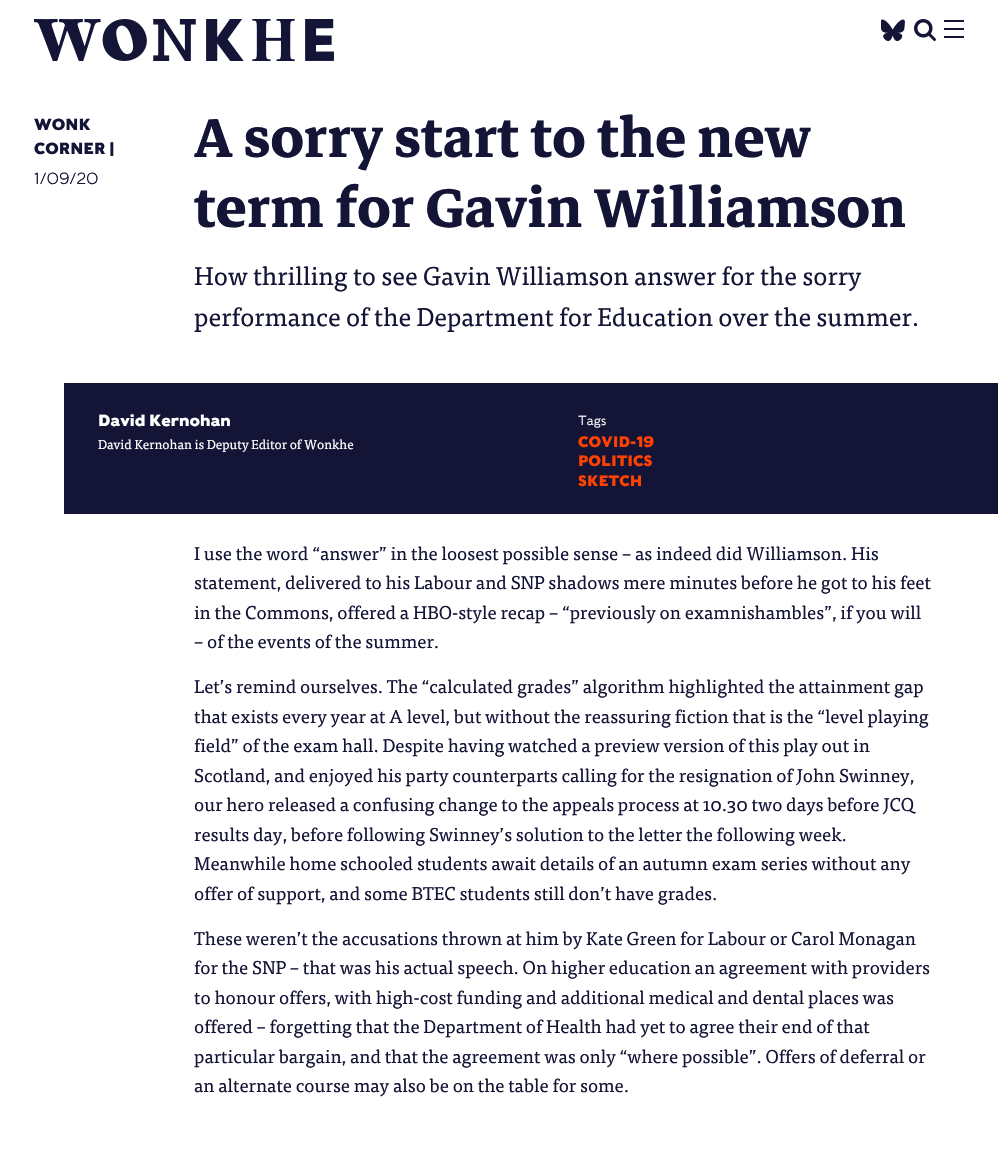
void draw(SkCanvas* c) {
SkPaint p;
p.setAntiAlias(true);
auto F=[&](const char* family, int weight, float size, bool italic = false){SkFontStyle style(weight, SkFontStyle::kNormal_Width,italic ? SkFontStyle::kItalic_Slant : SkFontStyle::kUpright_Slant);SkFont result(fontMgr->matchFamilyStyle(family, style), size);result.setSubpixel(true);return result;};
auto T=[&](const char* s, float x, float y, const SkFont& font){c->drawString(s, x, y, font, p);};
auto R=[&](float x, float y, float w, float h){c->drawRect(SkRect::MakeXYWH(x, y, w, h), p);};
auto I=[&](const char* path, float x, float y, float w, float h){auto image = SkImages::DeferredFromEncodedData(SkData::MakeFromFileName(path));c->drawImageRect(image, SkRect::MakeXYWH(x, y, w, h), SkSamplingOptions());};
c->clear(0xffffffff);
I("1.png",34,19,300,42);
I("2.png",881,19,24,22);
I("3.png",914,19,22,22);
p.setColor(0xff141437);
R(944,20,20,2);
R(944,28,20,2);
R(944,36,20,2);
auto f1 = F("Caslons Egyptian",700,16);
T("WONK",34,130,f1);
T("CORNER |",34,154,f1);
auto f2 = F("Caslons Egyptian",300,16);
T("1/09/20",34,184,f2);
auto f3 = F("Markazi Text",700,77.75);
T("A sorry start to the new",194,157,f3);
T("term for Gavin Williamson",194,227,f3);
auto f4 = F("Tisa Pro",400,25.6);
T("How thrilling to see Gavin Williamson answer for the sorry",194,285,f4);
T("performance of the Department for Education over the summer.",194,326,f4);
R(64,383,934,131);
p.setColor(0xffffffff);
T("David Kernohan",98,426,f1);
auto f5 = F("Tisa Pro",400,13);
T("David Kernohan is Deputy Editor of Wonkhe",98,449,f5);
auto f6 = F("Caslons Egyptian",300,13);
T("Tags",578,425,f6);
auto f7 = F("Caslons Egyptian",700,15);
p.setColor(0xffff4201);
T("COVID-19",578,447,f7);
T("POLITICS",578,466,f7);
T("SKETCH",578,486,f7);
auto f8 = F("Tisa Pro",400,18.4);
p.setColor(0xff141437);
T("I use the word “answer” in the loosest possible sense – as indeed did Williamson. His",194,560,f8);
T("statement, delivered to his Labour and SNP shadows mere minutes before he got to his feet",194,589,f8);
T("in the Commons, offered a HBO-style recap – “previously on examnishambles”, if you will",194,619,f8);
T("– of the events of the summer.",194,648,f8);
T("Let’s remind ourselves. The “calculated grades” algorithm highlighted the attainment gap",194,693,f8);
T("that exists every year at A level, but without the reassuring fiction that is the “level playing",194,723,f8);
T("field” of the exam hall. Despite having watched a preview version of this play out in",194,752,f8);
T("Scotland, and enjoyed his party counterparts calling for the resignation of John Swinney,",194,782,f8);
T("our hero released a confusing change to the appeals process at 10.30 two days before JCQ",194,811,f8);
T("results day, before following Swinney’s solution to the letter the following week.",194,841,f8);
T("Meanwhile home schooled students await details of an autumn exam series without any",194,870,f8);
T("offer of support, and some BTEC students still don’t have grades.",194,900,f8);
T("These weren’t the accusations thrown at him by Kate Green for Labour or Carol Monagan",194,945,f8);
T("for the SNP – that was his actual speech. On higher education an agreement with providers",194,974,f8);
T("to honour offers, with high-cost funding and additional medical and dental places was",194,1004,f8);
T("offered – forgetting that the Department of Health had yet to agree their end of that",194,1033,f8);
T("particular bargain, and that the agreement was only “where possible”. Offers of deferral or",194,1063,f8);
T("an alternate course may also be on the table for some.",194,1092,f8);
}
